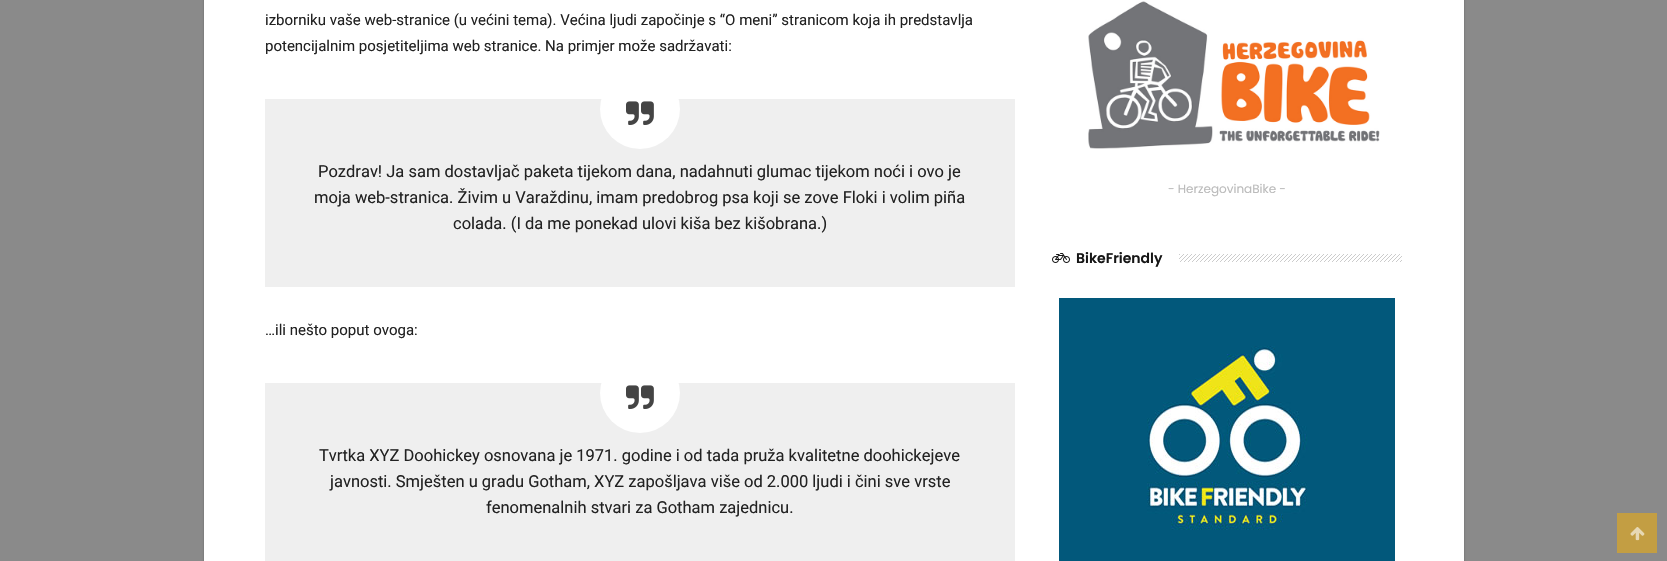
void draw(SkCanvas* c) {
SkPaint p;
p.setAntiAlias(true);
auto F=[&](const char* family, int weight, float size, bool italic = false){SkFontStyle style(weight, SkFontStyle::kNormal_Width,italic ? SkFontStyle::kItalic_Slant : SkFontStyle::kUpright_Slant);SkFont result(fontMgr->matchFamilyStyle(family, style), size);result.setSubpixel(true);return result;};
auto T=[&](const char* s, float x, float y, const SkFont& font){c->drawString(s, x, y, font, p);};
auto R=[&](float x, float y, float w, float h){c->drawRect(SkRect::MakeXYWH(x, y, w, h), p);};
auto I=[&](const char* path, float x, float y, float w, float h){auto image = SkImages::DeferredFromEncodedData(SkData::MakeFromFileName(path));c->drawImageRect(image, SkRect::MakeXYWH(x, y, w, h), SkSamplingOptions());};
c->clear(0xff8a8a8a);
p.setColor(0x45000000);
p.setMaskFilter(SkMaskFilter::MakeBlur(kNormal_SkBlurStyle, 1));
c->drawRect(SkRect::MakeXYWH(204,-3,1260,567),p);
p.setMaskFilter(nullptr);
p.setColor(0xffffffff);
R(204,0,1260,561);
auto f1 = F("Roboto",400,15);
p.setColor(0xff222222);
T("izborniku vaše web-stranice (u većini tema). Većina ljudi započinje s “O meni” stranicom koja ih predstavlja",265,25,f1);
T("potencijalnim posjetiteljima web stranice. Na primjer može sadržavati:",265,51,f1);
p.setColor(0xffefefef);
R(265,99,750,188);
p.setColor(0xffffffff);
c->drawCircle(640,109,40,p);
I("1.png",626,101,28,24);
auto f2 = F("Roboto",400,16.5);
p.setColor(0xff222222);
T("Pozdrav! Ja sam dostavljač paketa tijekom dana, nadahnuti glumac tijekom noći i ovo je",318,177,f2);
T("moja web-stranica. Živim u Varaždinu, imam predobrog psa koji se zove Floki i volim piña",314,203,f2);
T("colada. (I da me ponekad ulovi kiša bez kišobrana.)",453,229,f2);
T("…ili nešto poput ovoga:",265,335,f1);
p.setColor(0xffefefef);
R(265,383,750,178);
p.setColor(0xffffffff);
c->drawCircle(640,393,40,p);
I("1.png",626,385,28,24);
p.setColor(0xff222222);
T("Tvrtka XYZ Doohickey osnovana je 1971. godine i od tada pruža kvalitetne doohickejeve",319,461,f2);
T("javnosti. Smješten u gradu Gotham, XYZ zapošljava više od 2.000 ljudi i čini sve vrste",330,487,f2);
T("fenomenalnih stvari za Gotham zajednicu.",486,513,f2);
I("2.png",1088,1,292,148);
auto f3 = F("Poppins",400,12);
p.setColor(0xffbbbbbb);
T("- HerzegovinaBike -",1168,193,f3);
I("3.png",1052,253,18,10);
auto f4 = F("Poppins",600,14);
p.setColor(0xff161616);
T("BikeFriendly",1076,263,f4);
I("4.png",1179,254,223,8);
I("5.png",1059,298,336,263);
p.setColor(0xffc39e43);
R(1617,513,40,40);
I("6.png",1630,527,15,14);
}
